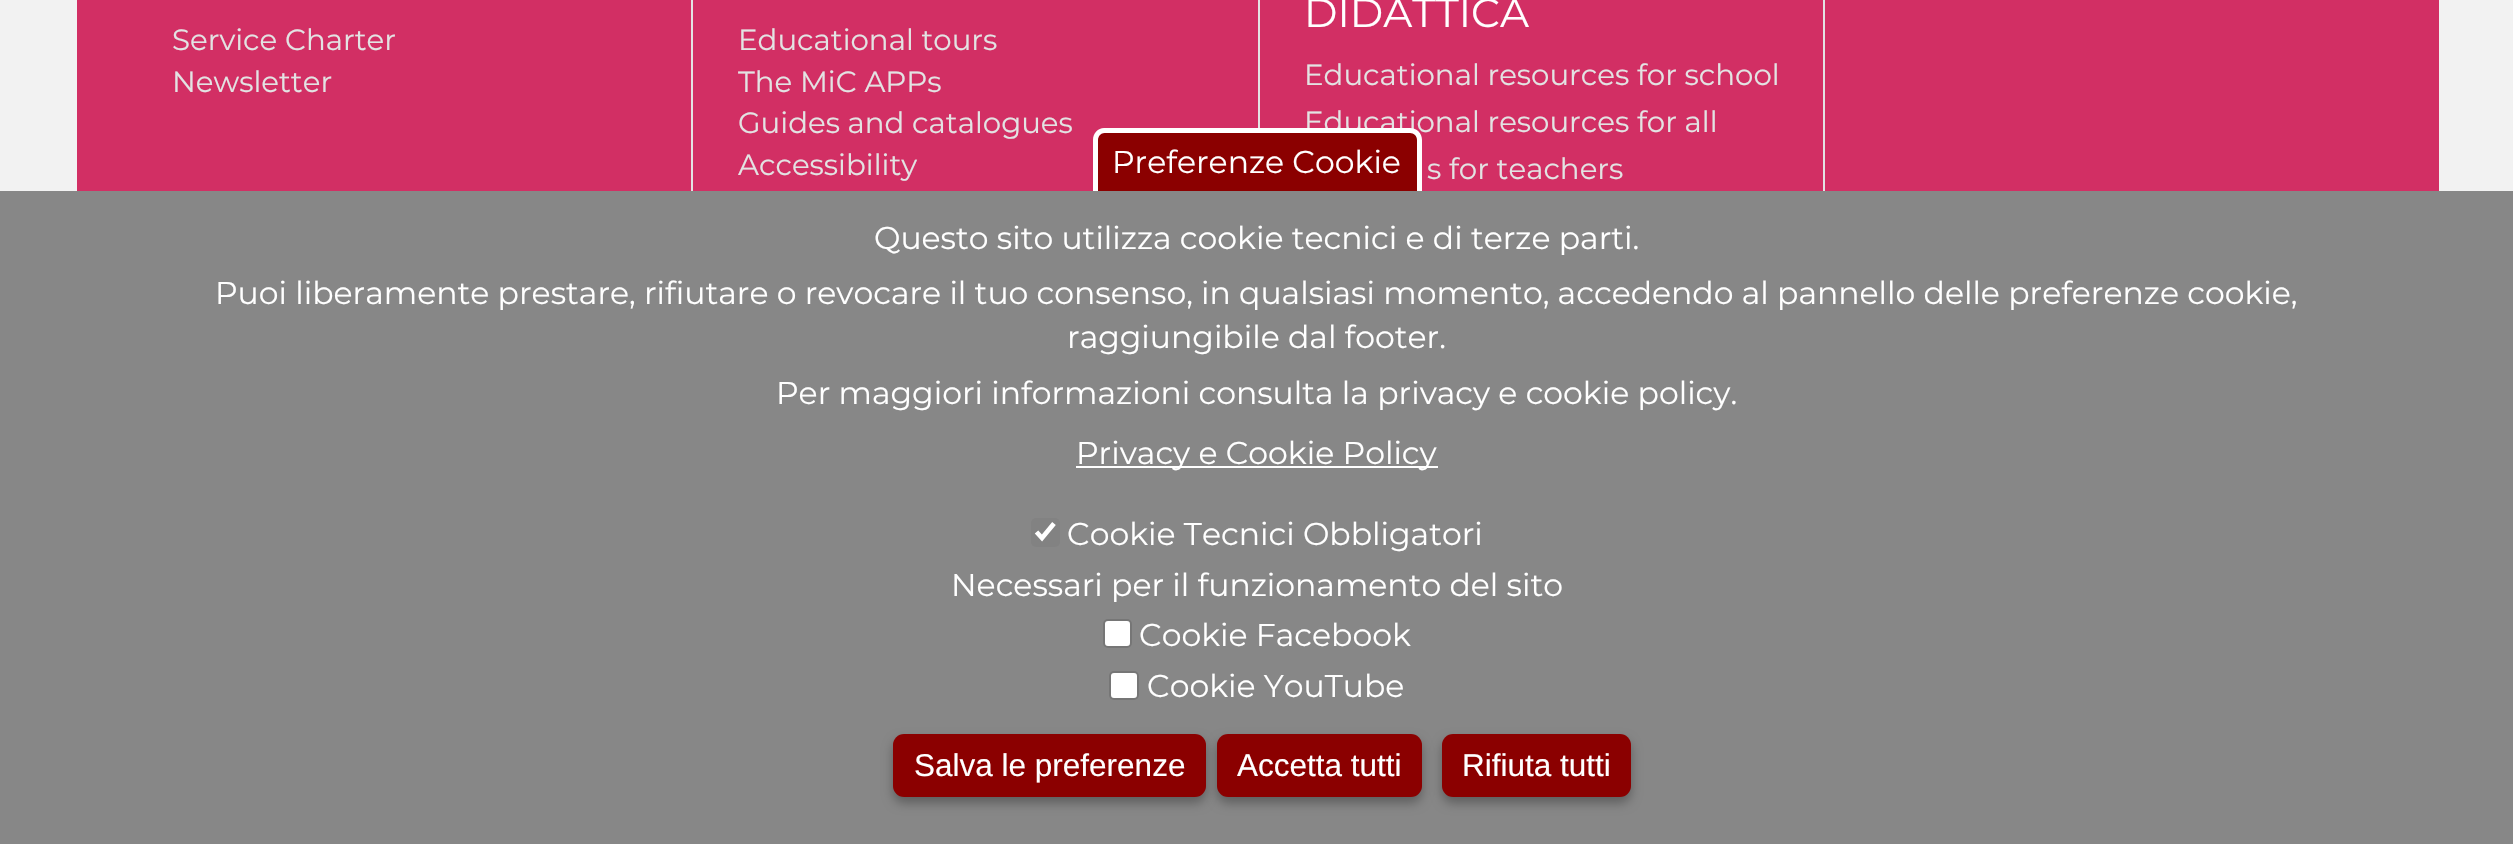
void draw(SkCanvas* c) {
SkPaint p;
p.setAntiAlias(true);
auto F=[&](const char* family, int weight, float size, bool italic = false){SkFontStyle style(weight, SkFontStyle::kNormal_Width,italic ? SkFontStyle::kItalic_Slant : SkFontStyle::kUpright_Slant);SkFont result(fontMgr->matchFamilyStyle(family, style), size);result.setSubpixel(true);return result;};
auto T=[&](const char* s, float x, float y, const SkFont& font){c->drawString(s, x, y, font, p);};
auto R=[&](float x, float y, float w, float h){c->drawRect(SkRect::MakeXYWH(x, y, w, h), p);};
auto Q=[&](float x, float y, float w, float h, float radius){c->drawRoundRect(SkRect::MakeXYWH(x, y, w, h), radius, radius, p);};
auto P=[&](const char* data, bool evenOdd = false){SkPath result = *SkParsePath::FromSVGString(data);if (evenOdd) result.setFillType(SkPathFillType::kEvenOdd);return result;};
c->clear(0xfff2f2f2);
p.setColor(0xffd22f64);
R(77,0,2362,191);
p.setColor(0xffe3e3e3);
R(691,0,2,191);
auto f1 = F("Montserrat",400,29.25);
T("Service Charter",172,50,f1);
T("Newsletter",172,92,f1);
R(1258,0,2,128);
T("Educational tours",738,50,f1);
T("The MiC APPs",738,92,f1);
T("Guides and catalogues",738,133,f1);
T("Accessibility",738,175,f1);
R(1823,0,2,191);
auto f2 = F("Montserrat",400,40.5);
p.setColor(0xffffffff);
T("DIDATTICA",1304,27,f2);
p.setColor(0xffe3e3e3);
T("Educational resources for school",1304,85,f1);
T("Educational resources for all",1304,132,f1);
T("s for teachers",1427,179,f1);
p.setColor(0xff878787);
R(0,191,2513,653);
p.setColor(0xff8b0000);
c->drawPath(P("M1105 133h306c4 0 7 3 7 7v51h-320v-51c0-4 3-7 7-7z"),p);
p.setColor(0xffffffff);
c->drawPath(P("M1104 128h306c7 0 12 5 12 12v51h-329v-51c0-7 5-12 11-12zm0 5h306c4 0 7 3 7 7v51h-319v-51c0-4 3-7 6-7z",true),p);
auto f3 = F("Montserrat",400,31.5);
T("Preferenze Cookie",1112,173,f3);
T("Questo sito utilizza cookie tecnici e di terze parti.",874,249,f3);
T("Puoi liberamente prestare, rifiutare o revocare il tuo consenso, in qualsiasi momento, accedendo al pannello delle preferenze cookie,",215,304,f3);
T("raggiungibile dal footer.",1067,348,f3);
T("Per maggiori informazioni consulta la privacy e cookie policy.",776,404,f3);
R(1076,466,362,2);
T("Privacy e Cookie Policy",1076,464,f3);
p.setColor(0xff828282);
Q(1031,518,29,29,5);
p.setStroke(true);
p.setStrokeWidth(4.7);
p.setColor(0xffffffff);
c->drawPath(P("M1036.5 532l5.5 6l12-14.5"),p);
p.setStroke(false);
T("Cookie Tecnici Obbligatori",1067,545,f3);
T("Necessari per il funzionamento del sito",951,596,f3);
c->drawRoundRect(SkRect::MakeXYWH(1104,620,27,27),4,4,p);
p.setStroke(true);
p.setStrokeWidth(2);
p.setColor(0xff767676);
c->drawRoundRect(SkRect::MakeXYWH(1104,620,27,27),4,4,p);
p.setStroke(false);
p.setColor(0xffffffff);
T("Cookie Facebook",1139,646,f3);
c->drawRoundRect(SkRect::MakeXYWH(1110,672,28,27),4,4,p);
p.setStroke(true);
p.setColor(0xff767676);
c->drawRoundRect(SkRect::MakeXYWH(1110,672,28,27),4,4,p);
p.setStroke(false);
p.setColor(0xffffffff);
T("Cookie YouTube",1147,697,f3);
p.setColor(0x4d000000);
p.setMaskFilter(SkMaskFilter::MakeBlur(kNormal_SkBlurStyle, 5.5));
c->drawRoundRect(SkRect::MakeXYWH(893,740,313,63),11,11,p);
p.setMaskFilter(nullptr);
p.setColor(0xff8b0000);
Q(893,734,313,63,11);
auto f4 = F("Liberation Sans",400,31.5);
p.setColor(0xffffffff);
T("Salva le preferenze",914,776,f4);
p.setColor(0x4d000000);
p.setMaskFilter(SkMaskFilter::MakeBlur(kNormal_SkBlurStyle, 5.5));
c->drawRoundRect(SkRect::MakeXYWH(1217,740,205,63),11,11,p);
p.setMaskFilter(nullptr);
p.setColor(0xff8b0000);
Q(1217,734,205,63,11);
p.setColor(0xffffffff);
T("Accetta tutti",1237,776,f4);
p.setColor(0x4d000000);
p.setMaskFilter(SkMaskFilter::MakeBlur(kNormal_SkBlurStyle, 5.5));
c->drawRoundRect(SkRect::MakeXYWH(1442,740,189,63),11,11,p);
p.setMaskFilter(nullptr);
p.setColor(0xff8b0000);
Q(1442,734,189,63,11);
p.setColor(0xffffffff);
T("Rifiuta tutti",1462,776,f4);
}
